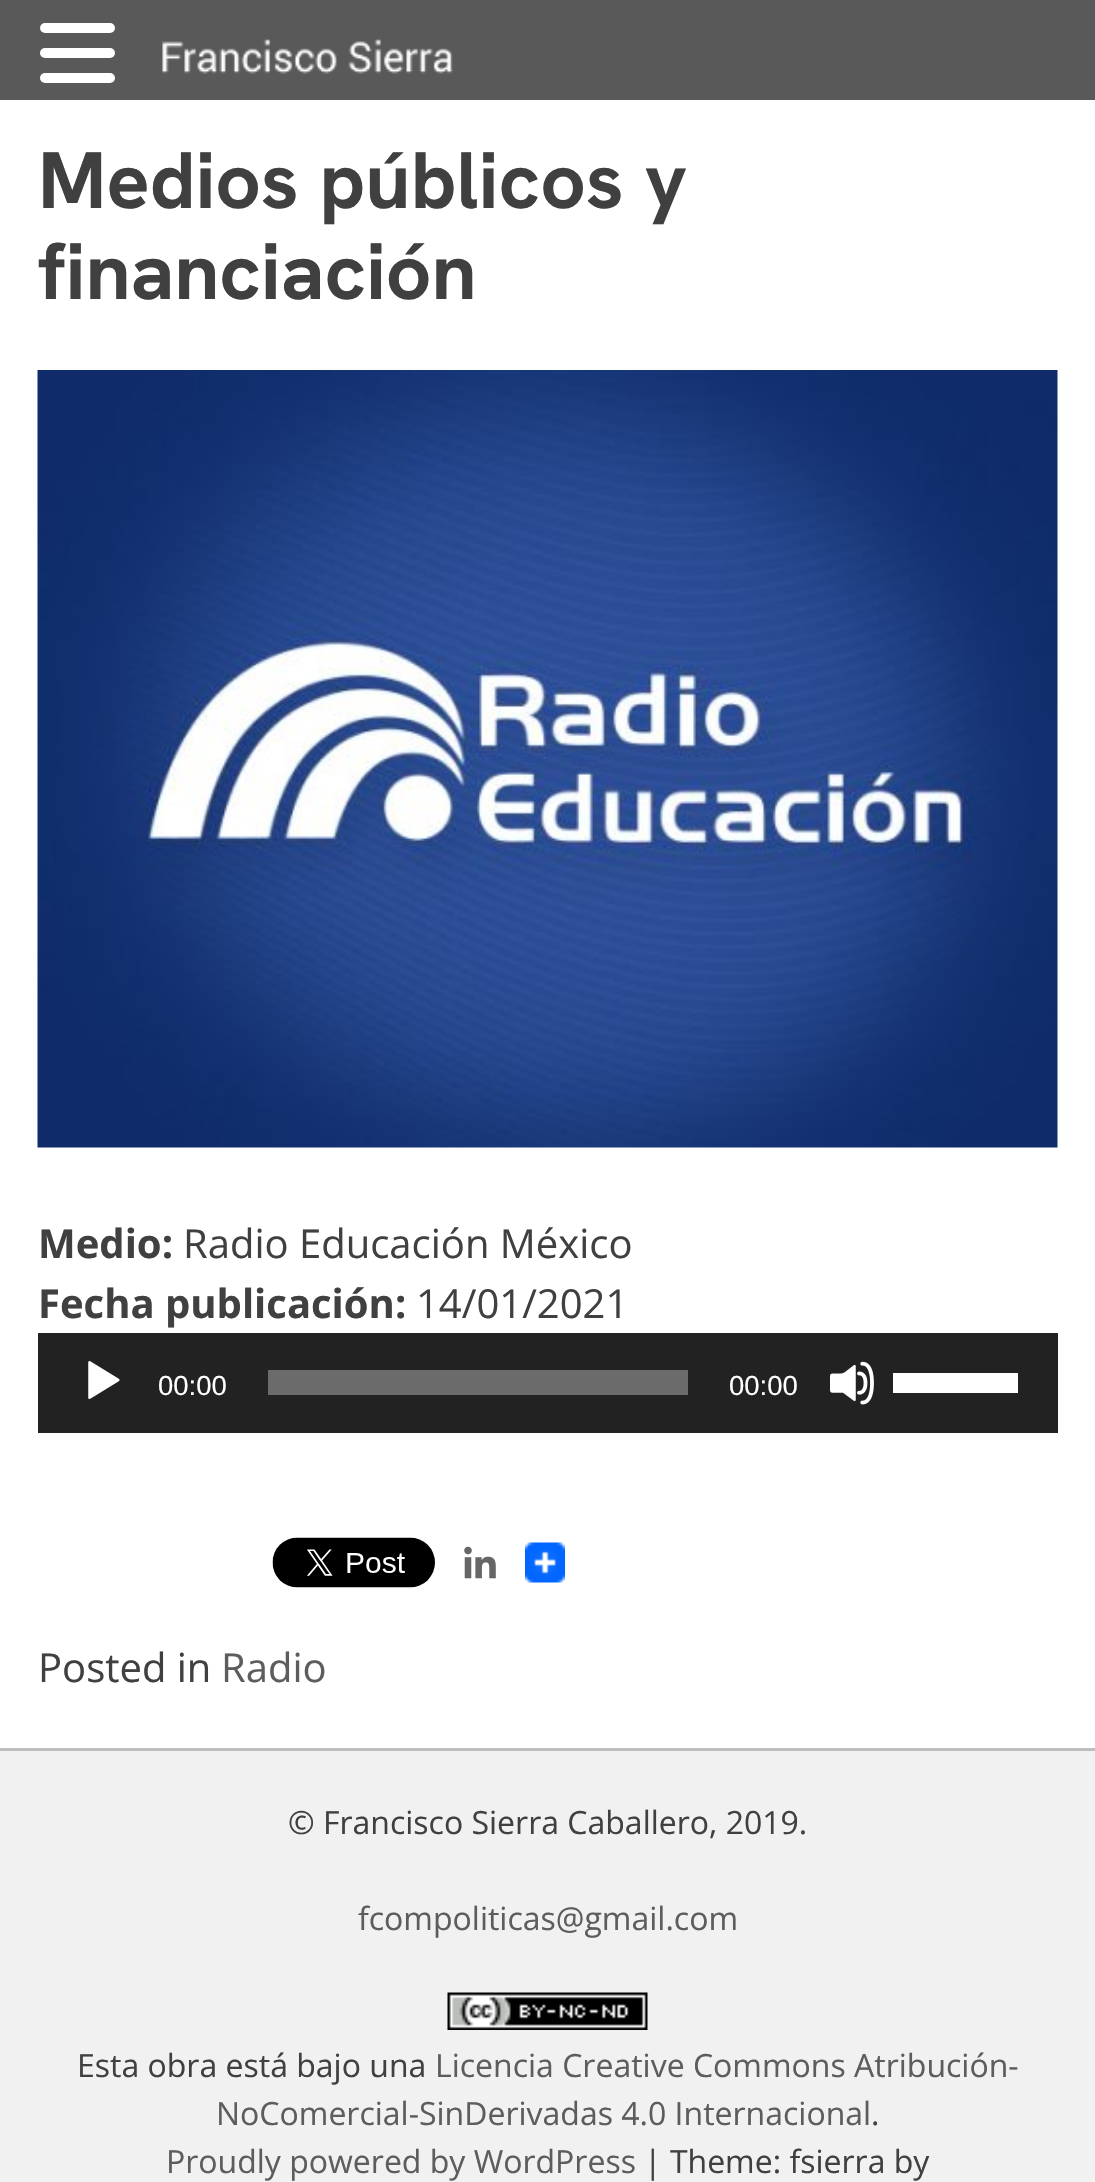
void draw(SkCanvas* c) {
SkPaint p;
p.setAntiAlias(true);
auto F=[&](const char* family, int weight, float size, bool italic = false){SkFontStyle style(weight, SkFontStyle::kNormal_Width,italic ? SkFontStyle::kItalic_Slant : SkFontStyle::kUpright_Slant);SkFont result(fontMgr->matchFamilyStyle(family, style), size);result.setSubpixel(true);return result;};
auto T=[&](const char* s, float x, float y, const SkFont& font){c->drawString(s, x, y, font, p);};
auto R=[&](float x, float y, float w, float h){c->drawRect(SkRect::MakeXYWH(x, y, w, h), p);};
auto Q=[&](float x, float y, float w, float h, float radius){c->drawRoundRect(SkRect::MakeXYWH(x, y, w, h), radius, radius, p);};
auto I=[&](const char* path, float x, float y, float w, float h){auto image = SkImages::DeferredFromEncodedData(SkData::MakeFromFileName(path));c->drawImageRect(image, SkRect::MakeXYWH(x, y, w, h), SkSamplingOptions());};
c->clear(0xffffffff);
p.setColor(0xff595959);
R(0,0,1095,100);
p.setColor(0xffffffff);
Q(40,23,75,10,5);
Q(40,48,75,10,5);
Q(40,73,75,10,5);
I("1.png",162,39,291,35);
auto f1 = F("Hanken Grotesk",700,80);
p.setColor(0xff404040);
T("Medios públicos y",38,208,f1);
T("financiación",38,299,f1);
I("2.png",37,370,1021,778);
auto f2 = F("Open Sans",700,40);
T("Medio:",38,1258,f2);
auto f3 = F("Open Sans",400,40);
T("Radio Educación México",183,1258,f3);
T("Fecha publicación:",38,1318,f2);
T("14/01/2021",416,1318,f3);
p.setColor(0xff222222);
R(38,1333,1020,100);
I("3.png",88,1361,32,39);
auto f4 = F("Liberation Sans",400,27.5);
p.setColor(0xffffffff);
T("00:00",158,1395,f4);
p.setColor(0xff6b6b6b);
R(268,1370,420,25);
p.setColor(0xffffffff);
T("00:00",729,1395,f4);
I("4.png",830,1361,44,44);
R(893,1373,125,20);
I("5.png",272,1537,163,51);
I("6.png",464,1546,32,33);
I("7.png",525,1542,40,41);
p.setColor(0xff404040);
T("Posted in",38,1682,f3);
p.setColor(0xff5d5d5d);
T("Radio",221,1682,f3);
p.setColor(0xfff1f1f1);
R(0,1751,1095,431);
p.setColor(0xffbebebe);
R(0,1748,1095,3);
auto f5 = F("Open Sans",400,32);
p.setColor(0xff404040);
T("© Francisco Sierra Caballero, 2019.",288,1834,f5);
p.setColor(0xff5d5d5d);
T("fcompoliticas@gmail.com",358,1930,f5);
I("8.png",447,1992,201,38);
p.setColor(0xff404040);
T("Esta obra está bajo una",77,2077,f5);
p.setColor(0xff5d5d5d);
T("Licencia Creative Commons Atribución-",435,2077,f5);
T("NoComercial-SinDerivadas 4.0 Internacional",216,2125,f5);
p.setColor(0xff404040);
T(".",871,2125,f5);
p.setColor(0xff5d5d5d);
T("Proudly powered by WordPress",166,2173,f5);
p.setColor(0xff404040);
T("| Theme: fsierra by",644,2173,f5);
}
